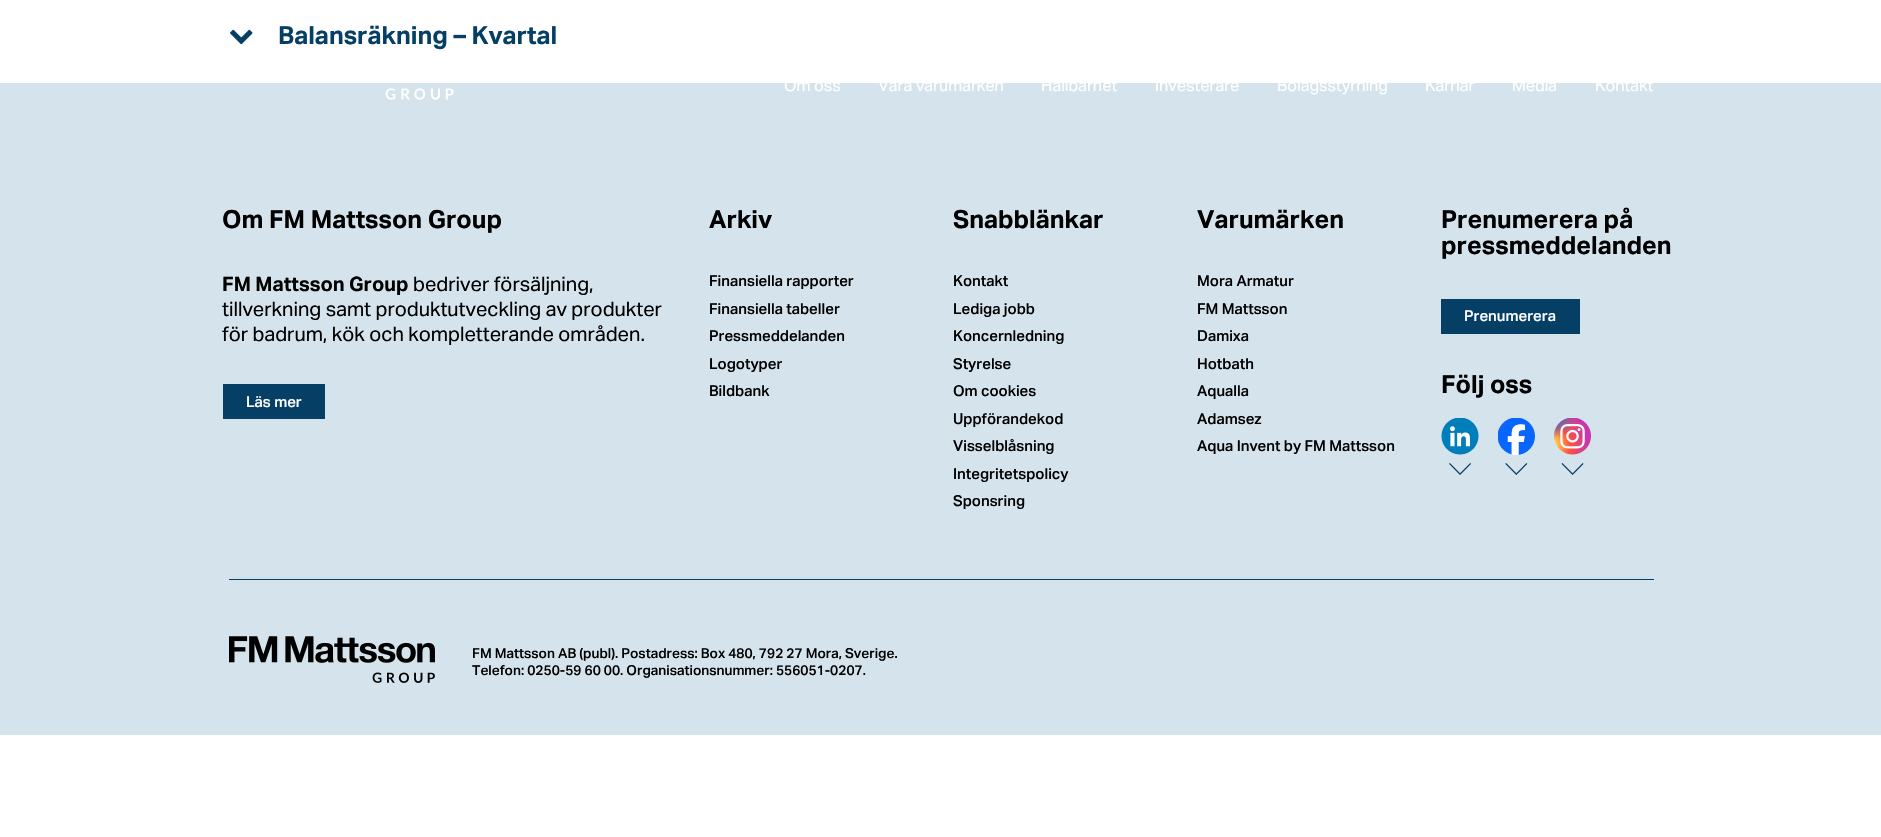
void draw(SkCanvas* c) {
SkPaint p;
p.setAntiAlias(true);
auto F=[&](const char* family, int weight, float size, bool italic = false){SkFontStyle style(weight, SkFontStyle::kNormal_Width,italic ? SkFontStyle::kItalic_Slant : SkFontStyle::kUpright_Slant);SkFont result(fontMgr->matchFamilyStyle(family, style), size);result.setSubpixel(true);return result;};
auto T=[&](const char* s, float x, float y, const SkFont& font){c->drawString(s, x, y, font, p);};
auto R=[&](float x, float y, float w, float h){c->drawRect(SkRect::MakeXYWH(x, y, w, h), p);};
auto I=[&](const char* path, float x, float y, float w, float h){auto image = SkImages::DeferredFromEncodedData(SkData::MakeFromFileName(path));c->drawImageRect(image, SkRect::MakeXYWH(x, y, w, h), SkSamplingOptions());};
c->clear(0xffffffff);
I("1.png",230,29,23,16);
auto f1 = F("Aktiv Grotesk",700,25);
p.setColor(0xff063f65);
T("Balansräkning – Kvartal",278,44,f1);
p.setColor(0xffd5e4ec);
R(0,83,1881,652);
I("2.png",385,88,69,12);
auto f2 = F("Aktiv Grotesk",400,16.25);
p.setColor(0xffffffff);
T("Om oss",784,91,f2);
T("Våra varumärken",878,91,f2);
T("Hållbarhet",1041,91,f2);
T("Investerare",1155,91,f2);
T("Bolagsstyrning",1277,91,f2);
T("Karriär",1425,91,f2);
T("Media",1512,91,f2);
T("Kontakt",1595,91,f2);
p.setColor(0xff000000);
T("Om FM Mattsson Group",222,228,f1);
auto f3 = F("Aktiv Grotesk",700,20);
T("FM Mattsson Group",222,291,f3);
auto f4 = F("Aktiv Grotesk",400,20);
T("bedriver försäljning,",413,291,f4);
T("tillverkning samt produktutveckling av produkter",222,316,f4);
T("för badrum, kök och kompletterande områden.",222,341,f4);
p.setColor(0xff063f65);
R(223,384,102,35);
auto f5 = F("Aktiv Grotesk",500,15);
p.setColor(0xffffffff);
T("Läs mer",246,407,f5);
p.setColor(0xff000000);
T("Arkiv",709,228,f1);
T("Finansiella rapporter",709,286,f5);
T("Finansiella tabeller",709,314,f5);
T("Pressmeddelanden",709,341,f5);
T("Logotyper",709,369,f5);
T("Bildbank",709,396,f5);
T("Snabblänkar",953,228,f1);
T("Kontakt",953,286,f5);
T("Lediga jobb",953,314,f5);
T("Koncernledning",953,341,f5);
T("Styrelse",953,369,f5);
T("Om cookies",953,396,f5);
T("Uppförandekod",953,424,f5);
T("Visselblåsning",953,451,f5);
T("Integritetspolicy",953,479,f5);
T("Sponsring",953,506,f5);
T("Varumärken",1197,228,f1);
T("Mora Armatur",1197,286,f5);
T("FM Mattsson",1197,314,f5);
T("Damixa",1197,341,f5);
T("Hotbath",1197,369,f5);
T("Aqualla",1197,396,f5);
T("Adamsez",1197,424,f5);
T("Aqua Invent by FM Mattsson",1197,451,f5);
T("Prenumerera på",1441,228,f1);
T("pressmeddelanden",1441,254,f1);
p.setColor(0xff063f65);
R(1441,299,139,35);
p.setColor(0xffffffff);
T("Prenumerera",1464,321,f5);
p.setColor(0xff000000);
T("Följ oss",1441,393,f1);
I("3.png",1441,418,38,57);
I("4.png",1498,418,37,57);
I("5.png",1554,418,37,57);
p.setColor(0xff063f65);
R(229,579,1425,1);
I("6.png",229,636,206,47);
auto f6 = F("Aktiv Grotesk",500,13.75);
p.setColor(0xff000000);
T("FM Mattsson AB (publ). Postadress: Box 480, 792 27 Mora, Sverige.",472,658,f6);
T("Telefon: 0250-59 60 00. Organisationsnummer: 556051-0207.",472,675,f6);
}
